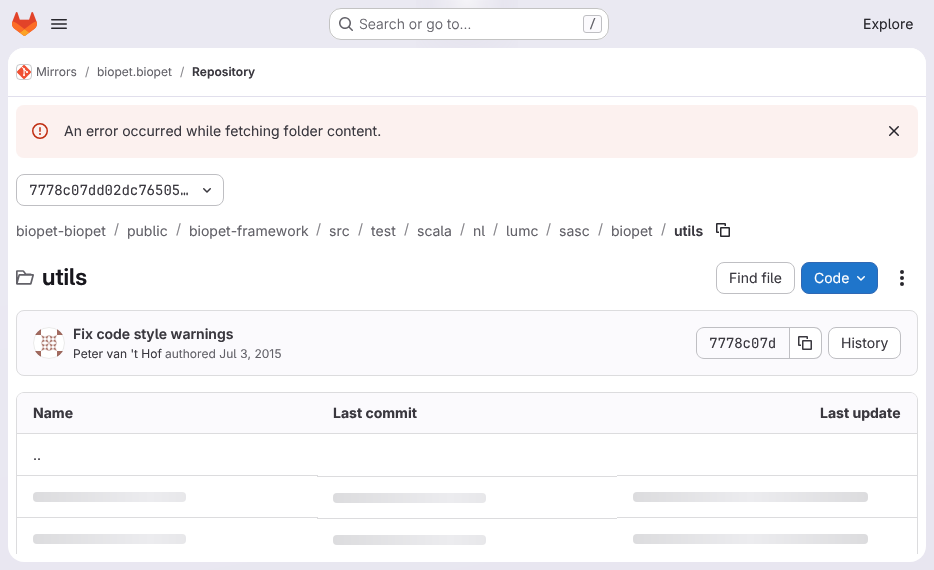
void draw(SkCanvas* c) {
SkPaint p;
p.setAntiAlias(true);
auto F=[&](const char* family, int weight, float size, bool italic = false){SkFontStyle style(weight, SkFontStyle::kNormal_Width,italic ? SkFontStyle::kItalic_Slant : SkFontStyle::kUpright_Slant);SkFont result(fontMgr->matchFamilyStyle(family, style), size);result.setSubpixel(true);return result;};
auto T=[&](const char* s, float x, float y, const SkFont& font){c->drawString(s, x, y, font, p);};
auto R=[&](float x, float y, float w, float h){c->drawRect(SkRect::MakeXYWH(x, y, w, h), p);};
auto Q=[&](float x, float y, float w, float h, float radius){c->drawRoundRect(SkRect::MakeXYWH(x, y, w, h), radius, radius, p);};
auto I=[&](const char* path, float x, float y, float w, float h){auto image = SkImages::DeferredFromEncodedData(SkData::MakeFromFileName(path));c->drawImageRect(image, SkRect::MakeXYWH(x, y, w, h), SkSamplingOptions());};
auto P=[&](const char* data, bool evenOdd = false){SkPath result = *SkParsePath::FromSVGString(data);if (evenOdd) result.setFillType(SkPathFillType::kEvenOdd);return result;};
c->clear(0xffffffff);
{
const SkColor colors[] = {0xffe8e6f0,0xffeae9f2};
const float stops[] = {0,.7};
const SkPoint ends[] = {{530,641}, {404,-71}};
p.setShader(SkGradientShader::MakeLinear(ends, colors, stops, 2, SkTileMode::kClamp));
p.setAlpha(255);
}
R(0,0,934,570);
{
const SkColor colors[] = {0xffe4e2ed,0x00e4e2ed};
const float stops[] = {0,.15};
SkMatrix m = SkMatrix::Translate(467,0).preScale(467,570);
p.setShader(SkGradientShader::MakeRadial({0, 0}, 1, colors, stops, 2, SkTileMode::kClamp, 0, &m));
p.setAlpha(255);
}
R(416,0,102,48);
{
const SkColor colors[] = {0xffe4e2ec,0x00e4e2ec};
const float stops[] = {0,.11};
SkMatrix m = SkMatrix::Translate(467,0).preScale(467,570);
p.setShader(SkGradientShader::MakeRadial({0, 0}, 1, colors, stops, 2, SkTileMode::kClamp, 0, &m));
p.setAlpha(255);
}
R(446,1,42,27);
{
const SkColor colors[] = {0x99ffffff,0x00ffffff};
const float stops[] = {0,.05};
p.setShader(SkGradientShader::MakeRadial({467,0}, 737, colors, stops, 2, SkTileMode::kClamp));
p.setAlpha(255);
}
R(431,0,71,8);
I("1.png",12,12,25,24);
I("2.png",51,19,16,10);
p.setShader(nullptr);
p.setColor(0xffffffff);
Q(329,8,280,32,12);
p.setStroke(true);
p.setStrokeWidth(1);
p.setColor(0x3d050506);
c->drawRoundRect(SkRect::MakeXYWH(329.5,8.5,279,31),11.5,11.5,p);
I("3.png",339,17,14,14);
auto f1 = F("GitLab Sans",300,14);
p.setStroke(false);
p.setColor(0xff626168);
T("Search or go to…",359,29,f1);
p.setColor(0xfffbfafd);
c->drawRoundRect(SkRect::MakeXYWH(583.5,15.5,18,17),2.5,2.5,p);
p.setStroke(true);
p.setColor(0xffbfbfc3);
c->drawRoundRect(SkRect::MakeXYWH(583.5,15.5,18,17),2.5,2.5,p);
auto f2 = F("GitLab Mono",500,12);
p.setStroke(false);
p.setColor(0xff626168);
T("/",589,28,f2);
auto f3 = F("GitLab Sans",400,14);
p.setColor(0xff28272d);
T("Explore",863,29,f3);
p.setColor(0xffffffff);
Q(8,48,918,514,16);
c->drawPath(P("M24 48h886c9 0 16 7 16 16v33h-918v-33c0-9 7-16 16-16z"),p);
p.setColor(0xffe1dfec);
R(8,96,918,1);
p.setStroke(true);
p.setColor(0xffdcdcde);
c->drawRoundRect(SkRect::MakeXYWH(16.5,64.5,15,15),3.5,3.5,p);
I("4.png",17,65,14,14);
p.setColor(0x14050506);
c->drawRoundRect(SkRect::MakeXYWH(16.5,64.5,15,15),3.5,3.5,p);
auto f4 = F("GitLab Sans",400,12);
p.setStroke(false);
p.setColor(0xff626168);
T("Mirrors",36,76,f4);
p.setColor(0xff89888d);
T("/",85,76,f4);
p.setColor(0xff626168);
T("biopet.biopet",97,76,f4);
p.setColor(0xff89888d);
T("/",180,76,f4);
auto f5 = F("GitLab Sans",600,12);
p.setColor(0xff3a383f);
T("Repository",192,76,f5);
p.setColor(0xfffcf1ef);
Q(16,105,902,53,8);
I("5.png",32,123,16,16);
p.setColor(0xff3a383f);
T("An error occurred while fetching folder content.",64,136,f3);
I("6.png",889,126,10,10);
p.setStroke(true);
p.setColor(0xffbfbfc3);
c->drawRoundRect(SkRect::MakeXYWH(16.5,174.5,207,31),7.5,7.5,p);
auto f6 = F("GitLab Mono",400,14);
p.setStroke(false);
p.setColor(0xff3a383f);
T("7778c07dd02dc76505…",29,195,f6);
I("7.png",203,188,8,5);
p.setColor(0xff626168);
T("biopet-biopet",16,236,f3);
p.setColor(0xff89888d);
T("/",114,234,f3);
p.setColor(0xff626168);
T("public",127,236,f3);
p.setColor(0xff89888d);
T("/",176,234,f3);
p.setColor(0xff626168);
T("biopet-framework",189,236,f3);
p.setColor(0xff89888d);
T("/",316,234,f3);
p.setColor(0xff626168);
T("src",329,236,f3);
p.setColor(0xff89888d);
T("/",358,234,f3);
p.setColor(0xff626168);
T("test",371,236,f3);
p.setColor(0xff89888d);
T("/",404,234,f3);
p.setColor(0xff626168);
T("scala",417,236,f3);
p.setColor(0xff89888d);
T("/",460,234,f3);
p.setColor(0xff626168);
T("nl",473,236,f3);
p.setColor(0xff89888d);
T("/",493,234,f3);
p.setColor(0xff626168);
T("lumc",506,236,f3);
p.setColor(0xff89888d);
T("/",546,234,f3);
p.setColor(0xff626168);
T("sasc",559,236,f3);
p.setColor(0xff89888d);
T("/",598,234,f3);
p.setColor(0xff626168);
T("biopet",611,236,f3);
p.setColor(0xff89888d);
T("/",661,234,f3);
auto f7 = F("GitLab Sans",600,14);
p.setColor(0xff3a383f);
T("utils",674,236,f7);
I("8.png",716,223,14,14);
I("9.png",16,270,18,15);
auto f8 = F("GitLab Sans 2",600,23);
p.setColor(0xff18171d);
T("utils",42,285,f8);
p.setStroke(true);
p.setColor(0xffbfbfc3);
c->drawRoundRect(SkRect::MakeXYWH(716.5,262.5,78,31),7.5,7.5,p);
p.setStroke(false);
p.setColor(0xff3a383f);
T("Find file",729,283,f3);
p.setColor(0xff1f75cb);
c->drawRoundRect(SkRect::MakeXYWH(801.5,262.5,76,31),7.5,7.5,p);
p.setStroke(true);
p.setColor(0xff2f68b4);
c->drawRoundRect(SkRect::MakeXYWH(801.5,262.5,76,31),7.5,7.5,p);
p.setStroke(false);
p.setColor(0xffffffff);
T("Code",814,283,f3);
I("10.png",857,276,8,5);
I("11.png",900,270,4,16);
p.setColor(0xfffbfafd);
c->drawRoundRect(SkRect::MakeXYWH(16.5,310.5,901,65),7.5,7.5,p);
p.setStroke(true);
p.setColor(0xffdcdcde);
c->drawRoundRect(SkRect::MakeXYWH(16.5,310.5,901,65),7.5,7.5,p);
I("12.png",33,327,32,32);
p.setColor(0x14050506);
c->drawCircle(49,343,15.5,p);
p.setStroke(false);
p.setColor(0xff3a383f);
T("Fix code style warnings",73,339,f7);
T("Peter van 't Hof",73,358,f4);
p.setColor(0xff626168);
T("authored Jul 3, 2015",165,358,f4);
p.setColor(0xffbfbfc3);
c->drawPath(P("M704 327h85v32h-85c-4 0-8-4-8-8v-16c0-4 4-8 8-8zm0 1h85v30h-85c-4 0-7-3-7-7v-16c0-4 3-7 7-7z",true),p);
p.setColor(0xff3a383f);
T("7778c07d",709,348,f6);
p.setColor(0xffffffff);
c->drawPath(P("M790 328h24c4 0 7 3 7 7v16c0 4-3 7-7 7h-24z"),p);
p.setColor(0xffbfbfc3);
c->drawPath(P("M790 327h24c4.5 0 8 3.5 8 8v16c0 4.5-3.5 8-8 8h-24zm0 1h24c4 0 7 3 7 7v16c0 4-3 7-7 7h-24z",true),p);
R(789,327,1,32);
I("13.png",798,336,14,14);
p.setColor(0xffffffff);
c->drawRoundRect(SkRect::MakeXYWH(828.5,327.5,72,31),7.5,7.5,p);
p.setStroke(true);
p.setColor(0xffbfbfc3);
c->drawRoundRect(SkRect::MakeXYWH(828.5,327.5,72,31),7.5,7.5,p);
p.setStroke(false);
p.setColor(0xff3a383f);
T("History",841,348,f3);
c->save();
c->clipRect(SkRect::MakeXYWH(8,97,918,457));
p.setColor(0xffdcdcde);
c->drawPath(P("M24 392c-4 0-8 4-8 8v160h1v-160c0-4 3-7 7-7h886c4 0 7 3 7 7v160h1v-160c0-4-4-8-8-8z"),p);
c->restore();
p.setColor(0xfffbfafd);
c->drawPath(P("M24 393h293v41h-300v-34c0-4 3-7 7-7z"),p);
auto f9 = F("GitLab Sans",700,14);
p.setColor(0xff3a383f);
T("Name",33,418,f9);
p.setColor(0xfffbfafd);
R(317,393,300,40);
p.setColor(0xff3a383f);
T("Last commit",333,418,f9);
p.setColor(0xfffbfafd);
c->drawPath(P("M617 393h293c4 0 7 3 7 7v34h-300z"),p);
p.setColor(0xff3a383f);
T("Last update",820,418,f9);
p.setColor(0xffdcdcde);
R(17,433,900,1);
p.setColor(0xff3a383f);
T("..",33,460,f3);
p.setColor(0xffdcdcde);
R(17,475,301,1);
{
const SkColor colors[] = {0xffdcdcde,0xffececef,0xffdcdcde};
const float stops[] = {0,.5,1};
const SkPoint ends[] = {{33,492}, {268,492}};
p.setShader(SkGradientShader::MakeLinear(ends, colors, stops, 3, SkTileMode::kClamp));
p.setAlpha(255);
}
Q(33,492,153,10,4);
p.setShader(nullptr);
p.setColor(0xffdcdcde);
R(317,476,300,1);
{
const SkColor colors[] = {0xffdcdcde,0xffececef,0xffdcdcde};
const float stops[] = {0,.5,1};
const SkPoint ends[] = {{333,493}, {568,493}};
p.setShader(SkGradientShader::MakeLinear(ends, colors, stops, 3, SkTileMode::kClamp));
p.setAlpha(255);
}
Q(333,493,153,10,4);
p.setShader(nullptr);
p.setColor(0xffdcdcde);
R(617,475,300,1);
{
const SkColor colors[] = {0xffdcdcde,0xffececef,0xffdcdcde};
const float stops[] = {0,.5,1};
const SkPoint ends[] = {{633,492}, {868,492}};
p.setShader(SkGradientShader::MakeLinear(ends, colors, stops, 3, SkTileMode::kClamp));
p.setAlpha(255);
}
Q(633,492,235,10,4);
p.setShader(nullptr);
p.setColor(0xffdcdcde);
R(17,517,301,1);
{
const SkColor colors[] = {0xffdcdcde,0xffececef,0xffdcdcde};
const float stops[] = {0,.5,1};
const SkPoint ends[] = {{33,534}, {268,534}};
p.setShader(SkGradientShader::MakeLinear(ends, colors, stops, 3, SkTileMode::kClamp));
p.setAlpha(255);
}
Q(33,534,153,10,4);
p.setShader(nullptr);
p.setColor(0xffdcdcde);
R(317,518,300,1);
{
const SkColor colors[] = {0xffdcdcde,0xffececef,0xffdcdcde};
const float stops[] = {0,.5,1};
const SkPoint ends[] = {{333,535}, {568,535}};
p.setShader(SkGradientShader::MakeLinear(ends, colors, stops, 3, SkTileMode::kClamp));
p.setAlpha(255);
}
Q(333,535,153,10,4);
p.setShader(nullptr);
p.setColor(0xffdcdcde);
R(617,517,300,1);
{
const SkColor colors[] = {0xffdcdcde,0xffececef,0xffdcdcde};
const float stops[] = {0,.5,1};
const SkPoint ends[] = {{633,534}, {868,534}};
p.setShader(SkGradientShader::MakeLinear(ends, colors, stops, 3, SkTileMode::kClamp));
p.setAlpha(255);
}
Q(633,534,235,10,4);
}
